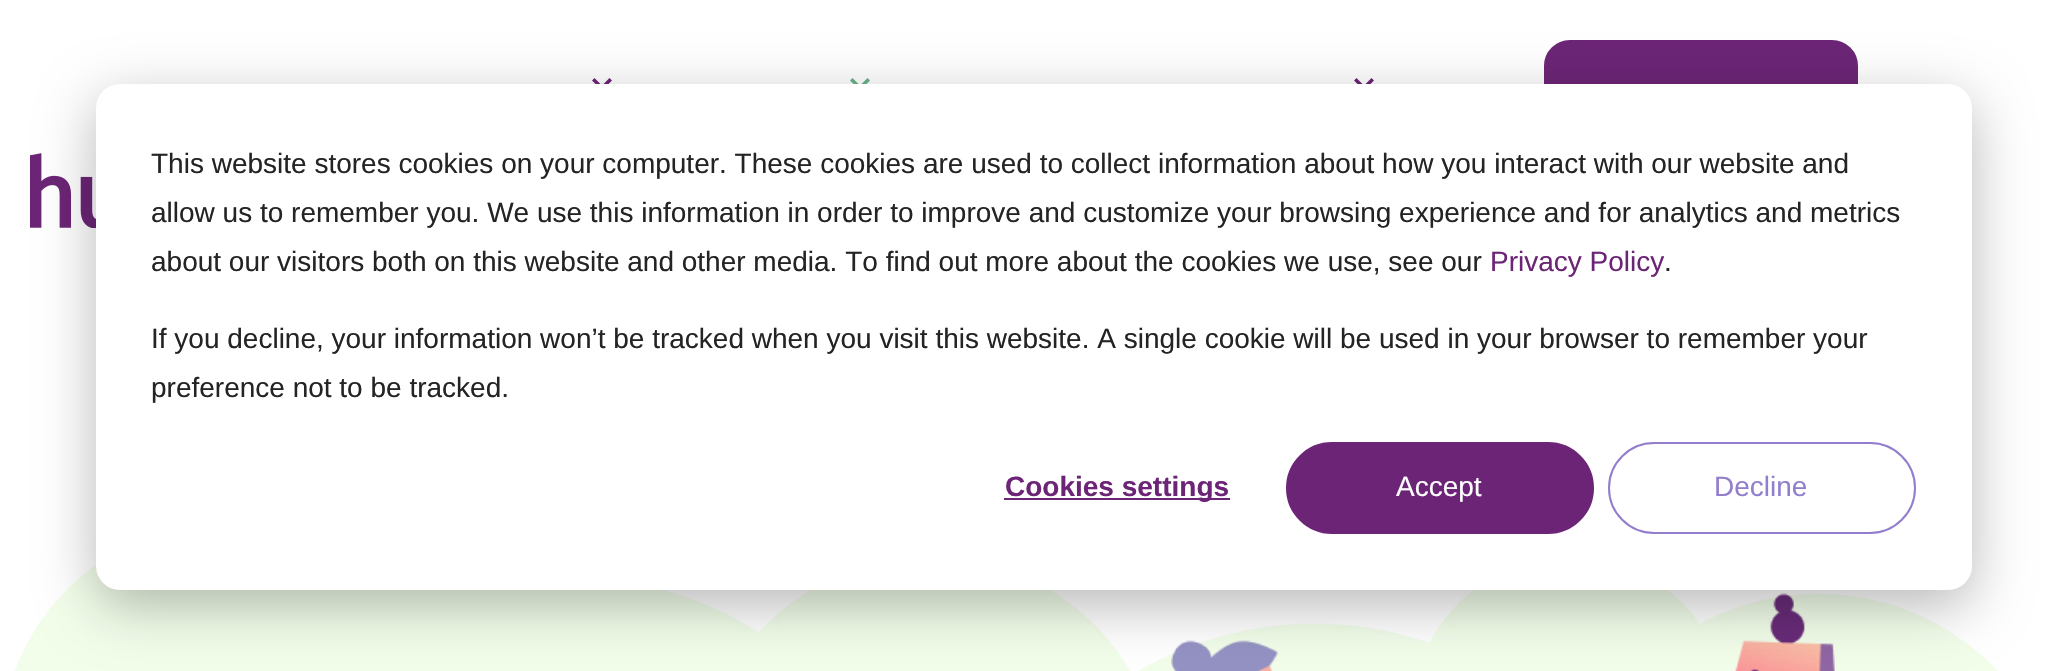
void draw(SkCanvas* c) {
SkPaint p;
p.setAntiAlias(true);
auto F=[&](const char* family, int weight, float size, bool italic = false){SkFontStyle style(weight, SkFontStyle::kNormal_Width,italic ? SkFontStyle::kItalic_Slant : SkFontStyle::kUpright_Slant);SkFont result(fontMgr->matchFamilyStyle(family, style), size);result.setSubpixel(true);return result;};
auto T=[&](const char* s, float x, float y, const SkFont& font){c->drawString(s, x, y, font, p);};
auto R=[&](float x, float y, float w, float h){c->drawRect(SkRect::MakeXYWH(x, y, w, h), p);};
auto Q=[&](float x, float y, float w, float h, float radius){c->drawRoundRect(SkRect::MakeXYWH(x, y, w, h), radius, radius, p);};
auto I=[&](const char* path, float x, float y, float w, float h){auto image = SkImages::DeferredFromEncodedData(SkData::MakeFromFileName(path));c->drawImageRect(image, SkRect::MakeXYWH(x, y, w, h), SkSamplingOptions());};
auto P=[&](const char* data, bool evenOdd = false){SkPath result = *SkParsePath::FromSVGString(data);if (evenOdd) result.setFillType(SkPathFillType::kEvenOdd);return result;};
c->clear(0xffffffff);
p.setColor(0xff6c2576);
c->drawPath(P("M609.5 78l-7.5 7.5l-7.5-7.5l-2.5 2.5l10 10l10-10z",true),p);
p.setColor(0xff66b385);
c->drawPath(P("M867.5 78l-7.5 7.5l-7.5-7.5l-2.5 2.5l10 10l10-10z",true),p);
p.setColor(0xff6c2576);
c->drawPath(P("M1371.5 78l-7.5 7.5l-7.5-7.5l-2.5 2.5l10 10l10-10z",true),p);
c->drawRoundRect(SkRect::MakeXYWH(1546,42,310,108),24,24,p);
p.setStroke(true);
p.setStrokeWidth(4);
c->drawRoundRect(SkRect::MakeXYWH(1546,42,310,108),24,24,p);
I("1.png",30,153,66,75);
I("2.png",14,564,1984,107);
I("3.png",1171,593,664,78);
p.setStroke(false);
p.setColor(0x47000000);
p.setMaskFilter(SkMaskFilter::MakeBlur(kNormal_SkBlurStyle, 28));
c->drawRoundRect(SkRect::MakeXYWH(96,100,1876,506),24,24,p);
p.setMaskFilter(nullptr);
p.setColor(0xffffffff);
Q(96,84,1876,506,24);
auto f1 = F("Liberation Sans",400,28);
p.setColor(0xff242424);
T("This website stores cookies on your computer. These cookies are used to collect information about how you interact with our website and",151,173,f1);
T("allow us to remember you. We use this information in order to improve and customize your browsing experience and for analytics and metrics",151,222,f1);
T("about our visitors both on this website and other media. To find out more about the cookies we use, see our",151,271,f1);
p.setColor(0xff6c2576);
T("Privacy Policy",1490,271,f1);
p.setColor(0xff242424);
T(".",1664,271,f1);
T("If you decline, your information won’t be tracked when you visit this website. A single cookie will be used in your browser to remember your",151,348,f1);
T("preference not to be tracked.",151,397,f1);
p.setColor(0xff6c2576);
R(1004,498,226,2);
auto f2 = F("Liberation Sans",700,28);
T("Cookies settings",1005,496,f2);
c->drawRoundRect(SkRect::MakeXYWH(1287,443,306,90),45,45,p);
p.setStroke(true);
p.setStrokeWidth(2);
c->drawRoundRect(SkRect::MakeXYWH(1287,443,306,90),45,45,p);
p.setStroke(false);
p.setColor(0xffffffff);
T("Accept",1396,496,f1);
p.setStroke(true);
p.setColor(0xff937ecd);
c->drawRoundRect(SkRect::MakeXYWH(1609,443,306,90),45,45,p);
p.setStroke(false);
T("Decline",1714,496,f1);
}
